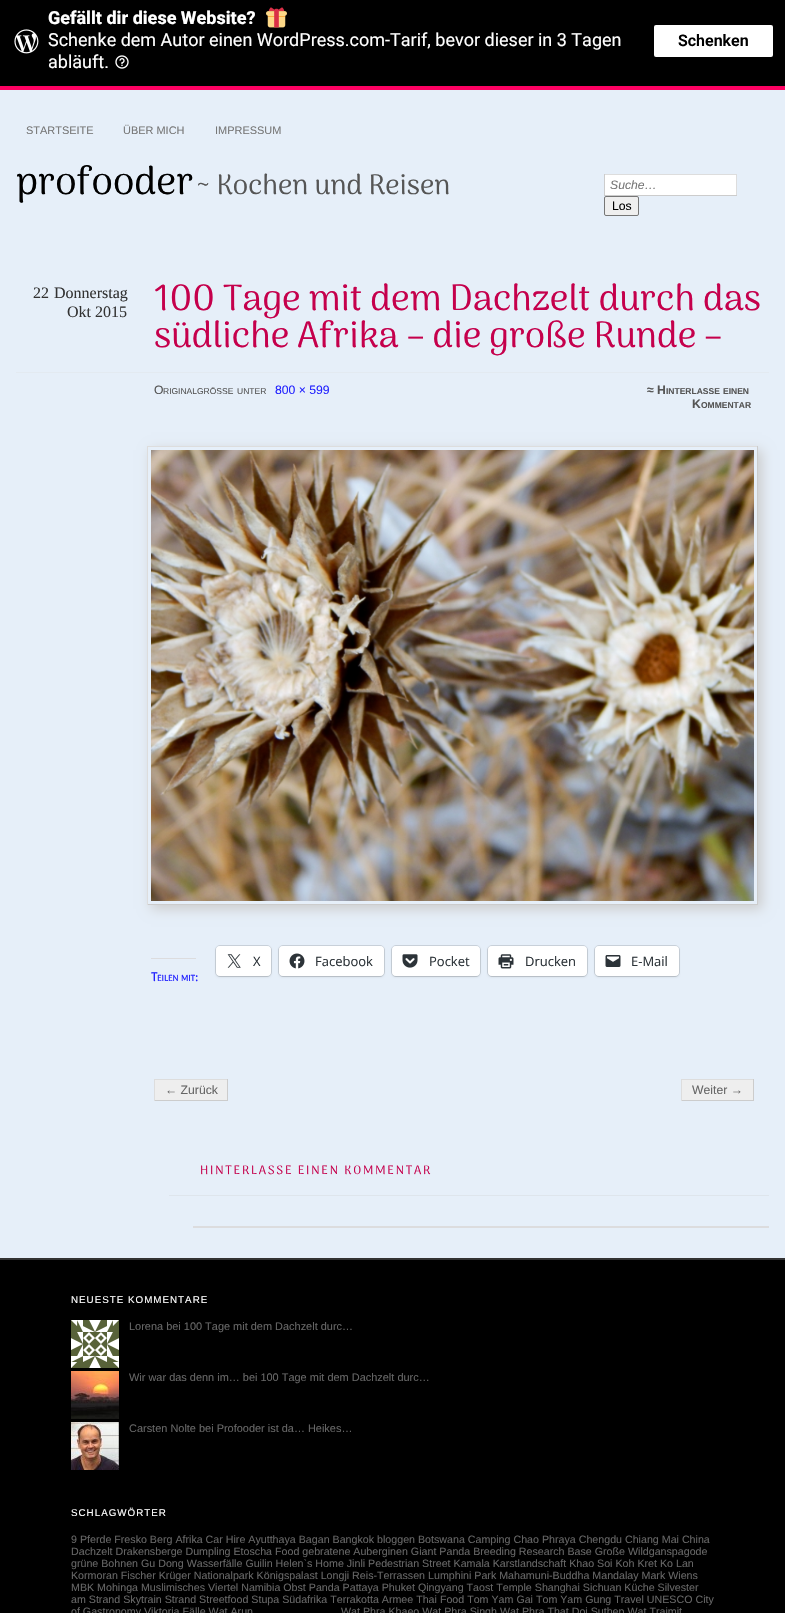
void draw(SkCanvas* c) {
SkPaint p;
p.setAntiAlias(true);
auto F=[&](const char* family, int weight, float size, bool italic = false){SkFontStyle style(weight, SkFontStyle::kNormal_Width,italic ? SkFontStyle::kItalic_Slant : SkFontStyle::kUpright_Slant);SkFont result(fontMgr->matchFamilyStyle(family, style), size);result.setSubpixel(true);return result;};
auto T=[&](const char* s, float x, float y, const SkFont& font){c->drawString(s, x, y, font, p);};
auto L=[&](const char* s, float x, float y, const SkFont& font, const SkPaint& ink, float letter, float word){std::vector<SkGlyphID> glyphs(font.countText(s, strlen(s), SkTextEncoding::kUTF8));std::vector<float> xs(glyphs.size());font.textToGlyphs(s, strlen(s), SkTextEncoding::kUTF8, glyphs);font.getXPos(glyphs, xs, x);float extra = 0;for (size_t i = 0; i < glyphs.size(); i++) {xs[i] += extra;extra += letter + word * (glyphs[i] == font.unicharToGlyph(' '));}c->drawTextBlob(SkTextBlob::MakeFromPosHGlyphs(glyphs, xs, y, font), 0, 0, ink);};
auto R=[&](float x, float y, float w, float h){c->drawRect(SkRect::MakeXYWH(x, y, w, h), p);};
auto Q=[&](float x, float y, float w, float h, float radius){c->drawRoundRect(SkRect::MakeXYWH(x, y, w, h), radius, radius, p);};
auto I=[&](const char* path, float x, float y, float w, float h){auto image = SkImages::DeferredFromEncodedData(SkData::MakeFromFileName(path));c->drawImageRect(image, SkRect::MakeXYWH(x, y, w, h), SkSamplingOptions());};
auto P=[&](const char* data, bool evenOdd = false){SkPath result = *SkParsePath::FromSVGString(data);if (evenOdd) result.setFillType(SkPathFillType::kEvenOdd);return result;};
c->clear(0xffe6eff9);
p.setColor(0xff000000);
R(0,0,785,86);
I("1.png",14,29,25,25);
auto f1 = F("Roboto",800,18);
p.setColor(0xffffffff);
T("Gefällt dir diese Website?",48,24,f1);
I("2.png",266,7,21,21);
auto f2 = F("Roboto",400,18);
T("Schenke dem Autor einen WordPress.com-Tarif, bevor dieser in 3 Tagen",48,46,f2);
T("abläuft.",48,68,f2);
I("3.png",115,55,14,14);
Q(654,25,119,32,2);
auto f3 = F("Roboto",600,16);
p.setColor(0xff000000);
T("Schenken",678,46,f3);
p.setColor(0xfffd0162);
R(0,86,785,4);
auto f4 = F("Liberation Sans",400,10.95);
p.setColor(0xff777777);
T("STARTSEITE",26,134,f4);
T("ÜBER MICH",123,134,f4);
T("IMPRESSUM",215,134,f4);
auto f5 = F("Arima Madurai",400,39);
p.setColor(0xff000000);
T("profooder",16,194,f5);
auto f6 = F("Arima Madurai",400,28);
p.setColor(0xff555555);
T("~ Kochen und Reisen",196,194,f6);
p.setColor(0xffffffff);
R(605,175,131,20);
p.setColor(0xffdddddd);
R(604,174,133,1);
R(736,174,1,22);
p.setColor(0xffcccccc);
R(604,195,133,1);
R(604,174,1,22);
auto f7 = F("Liberation Sans",400,12.2,true);
p.setColor(0xff777777);
T("Suche…",610,189,f7);
p.setColor(0xffefefef);
c->drawRoundRect(SkRect::MakeXYWH(604.5,196.5,34,19),1.5,1.5,p);
p.setStroke(true);
p.setStrokeWidth(1);
p.setColor(0xff767676);
c->drawRoundRect(SkRect::MakeXYWH(604.5,196.5,34,19),1.5,1.5,p);
auto f8 = F("Liberation Sans",400,12.2);
p.setStroke(false);
p.setColor(0xff000000);
T("Los",612,210,f8);
auto f9 = F("Liberation Serif",400,16);
p.setColor(0xff333333);
T("22",33,298,f9);
T("Donnerstag",54,298,f9);
T("Okt 2015",67,317,f9);
p.setColor(0xffe3eaf1);
R(16,372,753,1);
auto f10 = F("Arima Madurai",400,36.5);
p.setColor(0xffc5004c);
T("100 Tage mit dem Dachzelt durch das",154,310,f10);
T("südliche Afrika – die große Runde –",154,347,f10);
p.setColor(0xff555555);
T("O",154,394,f8);
auto f11 = F("Liberation Sans",400,8.5);
T("RIGINALGRÖSSE",163,394,f11);
T("UNTER",237,394,f11);
p.setColor(0xff2323ff);
T("800 × 599",275,394,f8);
auto f12 = F("Liberation Sans",700,12.2);
p.setColor(0xff555555);
T("≈ H",647,394,f12);
auto f13 = F("Liberation Sans",700,8.5);
T("INTERLASSE",666,394,f13);
T("EINEN",723,394,f13);
T("K",692,408,f12);
T("OMMENTAR",701,408,f13);
c->save();
c->clipPath(P("M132 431h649v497h-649zm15 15h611v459h-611z",true),true);
p.setColor(0xffcccccc);
p.setMaskFilter(SkMaskFilter::MakeBlur(kNormal_SkBlurStyle, 6));
c->drawRect(SkRect::MakeXYWH(151,450,611,459),p);
p.setMaskFilter(nullptr);
c->restore();
p.setColor(0xffdddddd);
R(147,446,611,1);
p.setColor(0xffcccccc);
R(757,446,1,459);
R(147,904,611,1);
p.setColor(0xffdddddd);
R(147,446,1,459);
I("4.png",151,450,603,451);
p.setStroke(true);
p.setColor(0xffcad2db);
c->drawRoundRect(SkRect::MakeXYWH(215.5,945.5,56,31),4.5,4.5,p);
p.setStroke(false);
p.setColor(0x1f000000);
p.setMaskFilter(SkMaskFilter::MakeBlur(kNormal_SkBlurStyle, 1));
c->drawRoundRect(SkRect::MakeXYWH(216,947,55,30),4,4,p);
p.setMaskFilter(nullptr);
p.setColor(0xffffffff);
Q(216,946,55,30,4);
I("5.png",227,954,14,14);
auto f14 = F("Open Sans",400,13);
p.setColor(0xff2c3338);
T("X",253,966,f14);
p.setStroke(true);
p.setColor(0xffcad2db);
c->drawRoundRect(SkRect::MakeXYWH(278.5,945.5,106,31),4.5,4.5,p);
p.setStroke(false);
p.setColor(0x1f000000);
p.setMaskFilter(SkMaskFilter::MakeBlur(kNormal_SkBlurStyle, 1));
c->drawRoundRect(SkRect::MakeXYWH(279,947,105,30),4,4,p);
p.setMaskFilter(nullptr);
p.setColor(0xffffffff);
Q(279,946,105,30,4);
I("6.png",289,953,16,16);
p.setColor(0xff2c3338);
T("Facebook",315,966,f14);
p.setStroke(true);
p.setColor(0xffcad2db);
c->drawRoundRect(SkRect::MakeXYWH(391.5,945.5,89,31),4.5,4.5,p);
p.setStroke(false);
p.setColor(0x1f000000);
p.setMaskFilter(SkMaskFilter::MakeBlur(kNormal_SkBlurStyle, 1));
c->drawRoundRect(SkRect::MakeXYWH(392,947,88,30),4,4,p);
p.setMaskFilter(nullptr);
p.setColor(0xffffffff);
Q(392,946,88,30,4);
I("7.png",402,954,16,14);
p.setColor(0xff2c3338);
T("Pocket",429,966,f14);
p.setStroke(true);
p.setColor(0xffcad2db);
c->drawRoundRect(SkRect::MakeXYWH(487.5,945.5,100,31),4.5,4.5,p);
p.setStroke(false);
p.setColor(0x1f000000);
p.setMaskFilter(SkMaskFilter::MakeBlur(kNormal_SkBlurStyle, 1));
c->drawRoundRect(SkRect::MakeXYWH(488,947,99,30),4,4,p);
p.setMaskFilter(nullptr);
p.setColor(0xffffffff);
Q(488,946,99,30,4);
I("8.png",498,954,16,15);
p.setColor(0xff2c3338);
T("Drucken",525,966,f14);
p.setStroke(true);
p.setColor(0xffcad2db);
c->drawRoundRect(SkRect::MakeXYWH(594.5,945.5,85,31),4.5,4.5,p);
p.setStroke(false);
p.setColor(0x1f000000);
p.setMaskFilter(SkMaskFilter::MakeBlur(kNormal_SkBlurStyle, 1));
c->drawRoundRect(SkRect::MakeXYWH(595,947,84,30),4,4,p);
p.setMaskFilter(nullptr);
p.setColor(0xffffffff);
Q(595,946,84,30,4);
I("9.png",605,955,16,12);
p.setColor(0xff2c3338);
T("E-Mail",631,966,f14);
p.setColor(0xffdcdcde);
R(151,958,45,1);
auto f15 = F("Arima Madurai",700,12);
p.setColor(0xff2323ff);
T("T",151,981,f15);
auto f16 = F("Arima Madurai",700,8.5);
T("EILEN",157,981,f16);
T("MIT",181,981,f16);
T(":",195,981,f15);
p.setColor(0xffeeeeee);
R(155,1080,72,20);
p.setColor(0xffdddddd);
R(154,1079,74,1);
p.setColor(0xffcccccc);
R(227,1079,1,22);
R(154,1100,74,1);
p.setColor(0xffdddddd);
R(154,1079,1,22);
p.setColor(0xff666666);
T("← Zurück",165,1094,f8);
p.setColor(0xffeeeeee);
R(682,1080,71,20);
p.setColor(0xffdddddd);
R(681,1079,73,1);
p.setColor(0xffcccccc);
R(753,1079,1,22);
R(681,1100,73,1);
p.setColor(0xffdddddd);
R(681,1079,1,22);
p.setColor(0xff666666);
T("Weiter →",692,1094,f8);
p.setColor(0xffdee5ec);
R(169,1195,600,1);
auto f17 = F("Arima Madurai",400,12.2);
p.setColor(0xffc5004c);
L("HINTERLASSE EINEN KOMMENTAR",200,1174,f17,p,1.8,0);
p.setColor(0xffdcdcde);
R(193,1226,576,2);
p.setColor(0xff000000);
R(0,1260,785,353);
p.setColor(0xff333333);
R(0,1258,785,2);
auto f18 = F("Liberation Sans",400,9.8);
p.setColor(0xffffffff);
L("NEUESTE KOMMENTARE",71,1303,f18,p,1,0);
I("10.png",71,1320,48,48);
p.setColor(0xff666666);
T("Lorena bei 100 Tage mit dem Dachzelt durc…",129,1330,f4);
I("11.png",71,1371,48,48);
T("Wir war das denn im… bei 100 Tage mit dem Dachzelt durc…",129,1381,f4);
I("12.png",71,1422,48,48);
T("Carsten Nolte bei Profooder ist da… Heikes…",129,1432,f4);
p.setColor(0xffffffff);
L("SCHLAGWÖRTER",71,1516,f18,p,1,0);
auto f19 = F("Liberation Sans",400,10.67);
p.setColor(0xff666666);
T("9 Pferde Fresko Berg Afrika Car Hire Ayutthaya Bagan Bangkok bloggen Botswana Camping Chao Phraya Chengdu Chiang Mai China",71,1543,f19);
T("Dachzelt Drakensberge Dumpling Etoscha Food gebratene Auberginen Giant Panda Breeding Research Base Große Wildganspagode",71,1555,f19);
T("grüne Bohnen Gu Dong Wasserfälle Guilin Helen`s Home Jinli Pedestrian Street Kamala Karstlandschaft Khao Soi Koh Kret Ko Lan",71,1567,f19);
T("Kormoran Fischer Krüger Nationalpark Königspalast Longji Reis-Terrassen Lumphini Park Mahamuni-Buddha Mandalay Mark Wiens",71,1579,f19);
T("MBK Mohinga Muslimisches Viertel Namibia Obst Panda Pattaya Phuket Qingyang Taost Temple Shanghai Sichuan Küche Silvester",71,1591,f19);
T("am Strand Skytrain Strand Streetfood Stupa Südafrika Terrakotta Armee Thai Food Tom Yam Gai Tom Yam Gung Travel UNESCO City",71,1603,f19);
T("of Gastronomy Viktoria Fälle Wat Arun",71,1615,f19);
T("Wat Phra Khaeo Wat Phra Singh Wat Phra That Doi Suthep Wat Traimit",341,1615,f19);
}
